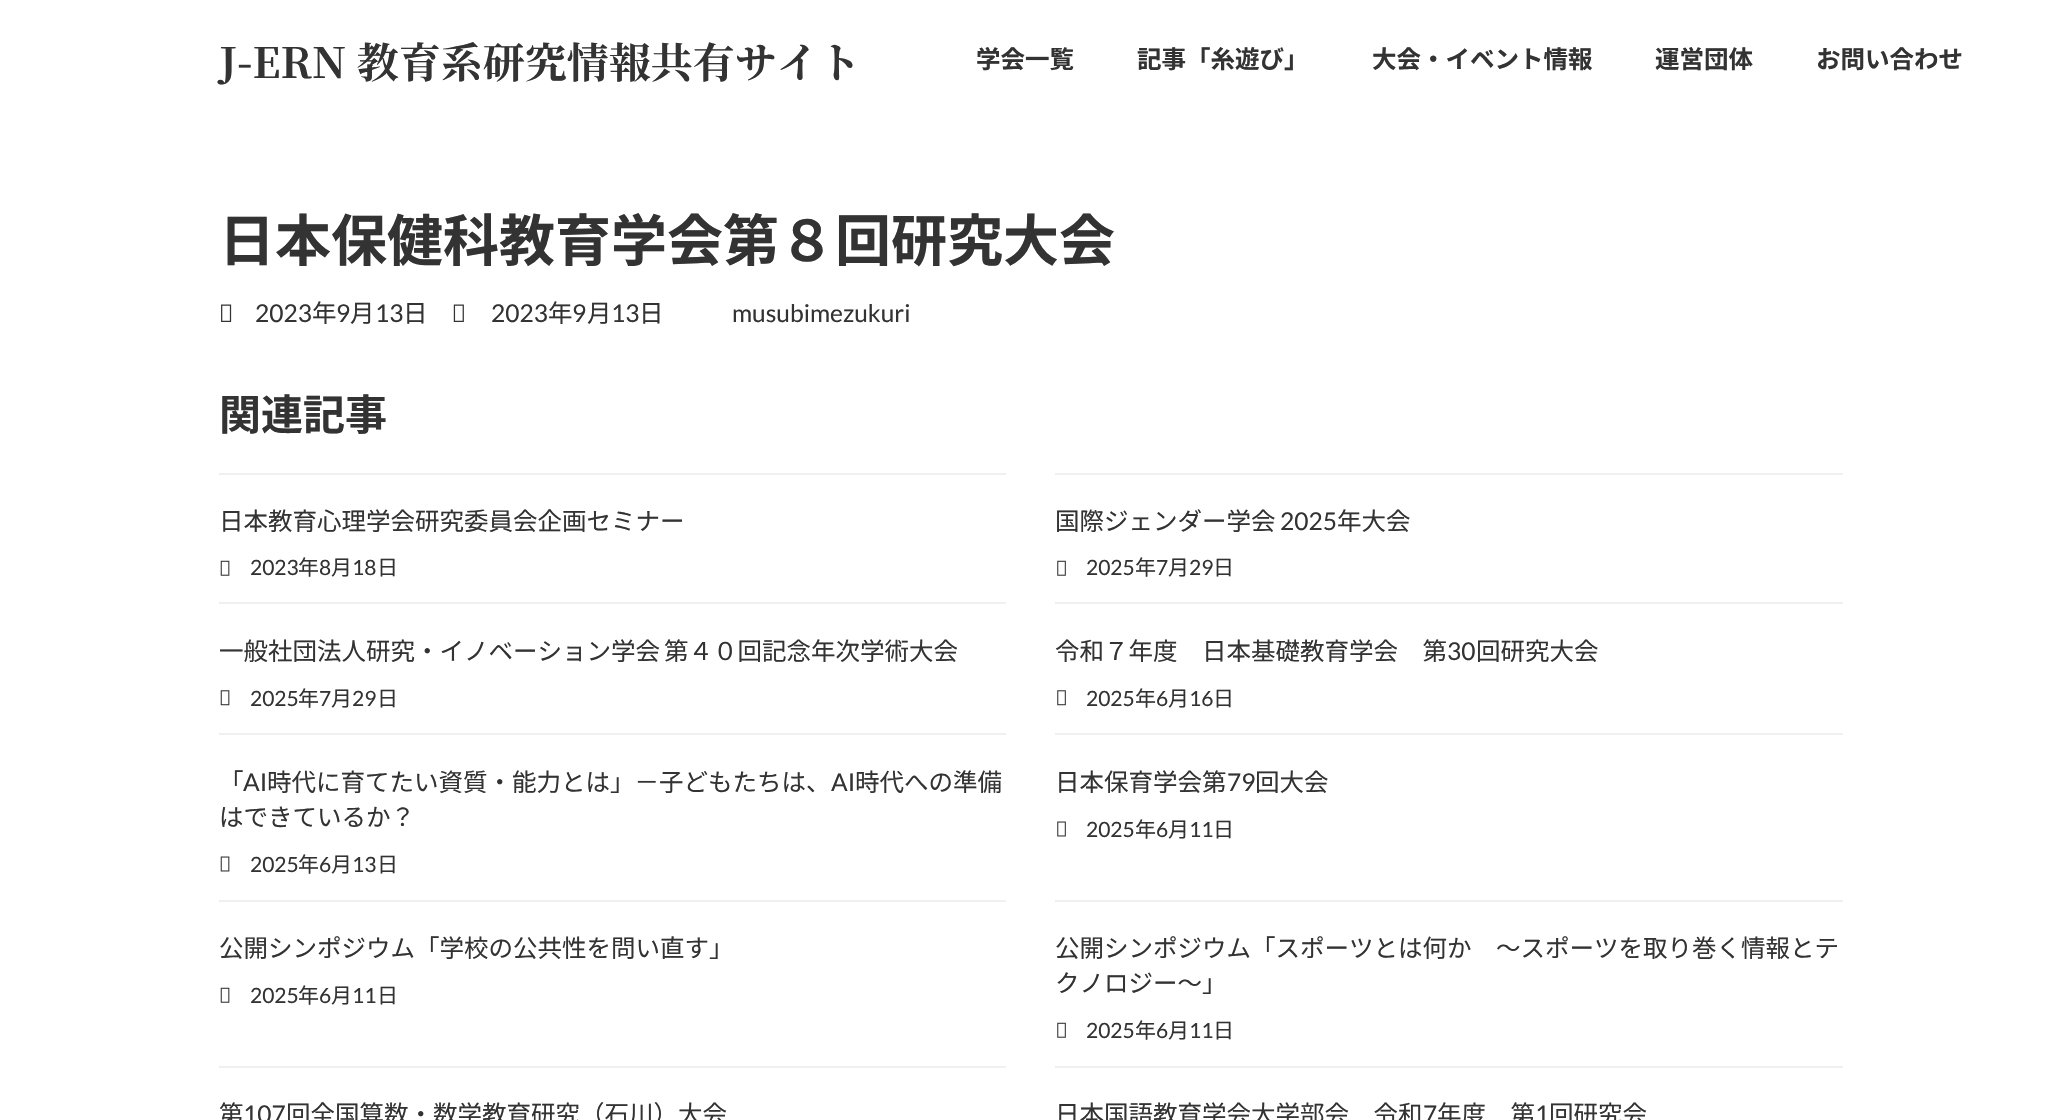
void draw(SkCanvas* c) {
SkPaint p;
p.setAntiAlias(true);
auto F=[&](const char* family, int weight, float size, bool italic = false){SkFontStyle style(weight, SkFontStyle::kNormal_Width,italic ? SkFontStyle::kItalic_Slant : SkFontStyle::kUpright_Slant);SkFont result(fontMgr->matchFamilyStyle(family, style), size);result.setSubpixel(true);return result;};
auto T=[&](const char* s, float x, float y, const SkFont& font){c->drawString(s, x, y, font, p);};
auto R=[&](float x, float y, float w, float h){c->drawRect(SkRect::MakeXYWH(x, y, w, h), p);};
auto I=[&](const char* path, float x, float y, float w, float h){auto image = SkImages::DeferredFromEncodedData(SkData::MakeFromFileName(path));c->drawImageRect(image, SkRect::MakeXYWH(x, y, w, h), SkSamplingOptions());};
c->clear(0xffffffff);
auto f1 = F("Noto Serif JP",700,42);
p.setColor(0xff333333);
T("J-ERN 教育系研究情報共有サイト",219,78,f1);
auto f2 = F("Noto Sans JP",700,24.5);
T("学会一覧",976,68,f2);
T("記事「糸遊び」",1137,68,f2);
T("大会・イベント情報",1372,68,f2);
T("運営団体",1655,68,f2);
T("お問い合わせ",1816,68,f2);
auto f3 = F("Noto Sans JP",700,56);
T("日本保健科教育学会第８回研究大会",219,261,f3);
I("1.png",221,304,11,18);
auto f4 = F("Lato",400,24.5);
T("2023",255,322,f4);
auto f5 = F("Noto Sans JP",400,24.5);
T("年",312,322,f5);
T("9",336,322,f4);
T("月",350,322,f5);
T("13",375,322,f4);
T("日",403,322,f5);
I("2.png",453,304,11,18);
T("2023",491,322,f4);
T("年",548,322,f5);
T("9",572,322,f4);
T("月",587,322,f5);
T("13",611,322,f4);
T("日",639,322,f5);
T("musubimezukuri",732,322,f4);
auto f6 = F("Noto Sans JP",700,42);
T("関連記事",219,430,f6);
p.setColor(0xfff0f0f0);
R(219,473,787,2);
R(219,602,787,2);
p.setColor(0xff333333);
T("日本教育心理学会研究委員会企画セミナー",219,530,f5);
I("3.png",220,560,10,16);
auto f7 = F("Lato",400,21);
T("2023",250,575,f7);
auto f8 = F("Noto Sans JP",400,21);
T("年",298,575,f8);
T("8",319,575,f7);
T("月",331,575,f8);
T("18",352,575,f7);
T("日",377,575,f8);
p.setColor(0xfff0f0f0);
R(1055,473,788,2);
R(1055,602,788,2);
p.setColor(0xff333333);
T("国際ジェンダー学会",1055,530,f5);
T("2025",1280,530,f4);
T("年大会",1337,530,f5);
I("4.png",1057,560,9,16);
T("2025",1086,575,f7);
T("年",1135,575,f8);
T("7",1156,575,f7);
T("月",1168,575,f8);
T("29",1189,575,f7);
T("日",1213,575,f8);
p.setColor(0xfff0f0f0);
R(219,733,787,2);
p.setColor(0xff333333);
T("一般社団法人研究・イノベーション学会",219,660,f5);
T("第４０回記念年次学術大会",664,660,f5);
I("5.png",220,690,10,16);
T("2025",250,706,f7);
T("年",298,706,f8);
T("7",319,706,f7);
T("月",331,706,f8);
T("29",352,706,f7);
T("日",377,706,f8);
p.setColor(0xfff0f0f0);
R(1055,733,788,2);
p.setColor(0xff333333);
T("令和７年度　日本基礎教育学会　第",1055,660,f5);
T("30",1447,660,f4);
T("回研究大会",1476,660,f5);
I("6.png",1057,690,9,16);
T("2025",1086,706,f7);
T("年",1135,706,f8);
T("6",1156,706,f7);
T("月",1168,706,f8);
T("16",1189,706,f7);
T("日",1213,706,f8);
p.setColor(0xfff0f0f0);
R(219,900,787,2);
p.setColor(0xff333333);
T("「",219,791,f5);
T("AI",243,791,f4);
T("時代に育てたい資質・能力とは」－子どもたちは、",267,791,f5);
T("AI",831,791,f4);
T("時代への準備",855,791,f5);
T("はできているか？",219,826,f5);
I("7.png",220,856,10,16);
T("2025",250,872,f7);
T("年",298,872,f8);
T("6",319,872,f7);
T("月",331,872,f8);
T("13",352,872,f7);
T("日",377,872,f8);
p.setColor(0xfff0f0f0);
R(1055,900,788,2);
p.setColor(0xff333333);
T("日本保育学会第",1055,791,f5);
T("79",1227,791,f4);
T("回大会",1255,791,f5);
I("8.png",1057,821,9,16);
T("2025",1086,837,f7);
T("年",1135,837,f8);
T("6",1156,837,f7);
T("月",1168,837,f8);
T("11",1189,837,f7);
T("日",1213,837,f8);
p.setColor(0xfff0f0f0);
R(219,1066,787,2);
p.setColor(0xff333333);
T("公開シンポジウム「学校の公共性を問い直す」",219,957,f5);
I("3.png",220,987,10,16);
T("2025",250,1003,f7);
T("年",298,1003,f8);
T("6",319,1003,f7);
T("月",331,1003,f8);
T("11",352,1003,f7);
T("日",377,1003,f8);
p.setColor(0xfff0f0f0);
R(1055,1066,788,2);
p.setColor(0xff333333);
T("公開シンポジウム「スポーツとは何か　～スポーツを取り巻く情報とテ",1055,957,f5);
T("クノロジー～」",1055,992,f5);
I("4.png",1057,1022,9,16);
T("2025",1086,1038,f7);
T("年",1135,1038,f8);
T("6",1156,1038,f7);
T("月",1168,1038,f8);
T("11",1189,1038,f7);
T("日",1213,1038,f8);
T("第",219,1123,f5);
T("107",243,1123,f4);
T("回全国算数・数学教育研究（石川）大会",286,1123,f5);
T("日本国語教育学会大学部会　令和",1055,1123,f5);
T("7",1423,1123,f4);
T("年度　第",1437,1123,f5);
T("1",1535,1123,f4);
T("回研究会",1549,1123,f5);
}
